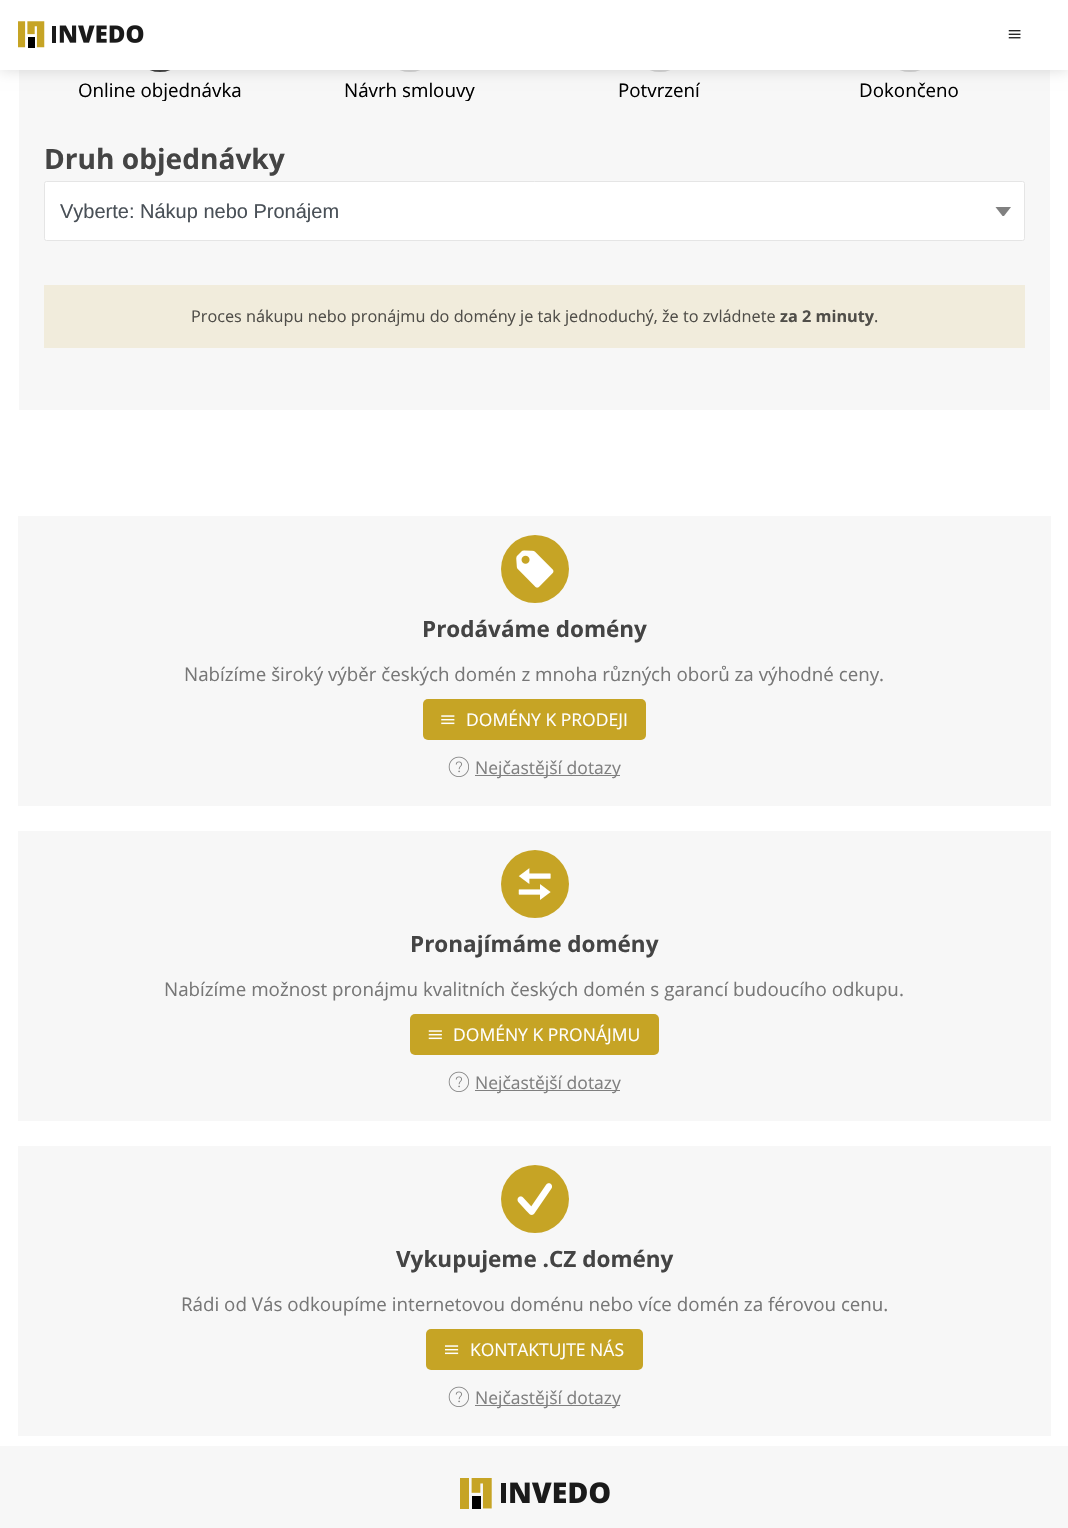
void draw(SkCanvas* c) {
SkPaint p;
p.setAntiAlias(true);
auto F=[&](const char* family, int weight, float size, bool italic = false){SkFontStyle style(weight, SkFontStyle::kNormal_Width,italic ? SkFontStyle::kItalic_Slant : SkFontStyle::kUpright_Slant);SkFont result(fontMgr->matchFamilyStyle(family, style), size);result.setSubpixel(true);return result;};
auto T=[&](const char* s, float x, float y, const SkFont& font){c->drawString(s, x, y, font, p);};
auto R=[&](float x, float y, float w, float h){c->drawRect(SkRect::MakeXYWH(x, y, w, h), p);};
auto Q=[&](float x, float y, float w, float h, float radius){c->drawRoundRect(SkRect::MakeXYWH(x, y, w, h), radius, radius, p);};
auto I=[&](const char* path, float x, float y, float w, float h){auto image = SkImages::DeferredFromEncodedData(SkData::MakeFromFileName(path));c->drawImageRect(image, SkRect::MakeXYWH(x, y, w, h), SkSamplingOptions());};
auto P=[&](const char* data, bool evenOdd = false){SkPath result = *SkParsePath::FromSVGString(data);if (evenOdd) result.setFillType(SkPathFillType::kEvenOdd);return result;};
c->clear(0xffffffff);
p.setColor(0xfff7f7f7);
R(19,70,1031,340);
p.setColor(0xff444444);
c->drawCircle(160,46,28,p);
p.setStroke(true);
p.setStrokeWidth(4);
p.setColor(0xfff7f7f7);
c->drawCircle(160,46,28,p);
p.setStroke(false);
p.setColor(0xffd6d6d6);
c->drawCircle(410,46,28,p);
p.setStroke(true);
p.setColor(0xfff7f7f7);
c->drawCircle(410,46,28,p);
p.setStroke(false);
p.setColor(0xffd6d6d6);
c->drawCircle(660,46,28,p);
p.setStroke(true);
p.setColor(0xfff7f7f7);
c->drawCircle(660,46,28,p);
p.setStroke(false);
p.setColor(0xffd6d6d6);
c->drawCircle(910,46,28,p);
p.setStroke(true);
p.setColor(0xfff7f7f7);
c->drawCircle(910,46,28,p);
p.setStroke(false);
p.setColor(0x24000000);
p.setMaskFilter(SkMaskFilter::MakeBlur(kNormal_SkBlurStyle, 7));
c->drawRect(SkRect::MakeXYWH(0,0,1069,70),p);
p.setMaskFilter(nullptr);
p.setColor(0xffffffff);
R(0,0,1068,70);
I("1.png",18,21,126,27);
I("2.png",1008,30,13,9);
c->save();
c->clipRect(SkRect::MakeXYWH(44,16,981,85));
auto f1 = F("Open Sans",400,18.75);
p.setColor(0xff000000);
T("Online objednávka",78,97,f1);
T("Návrh smlouvy",344,97,f1);
c->restore();
T("Potvrzení",618,97,f1);
T("Dokončeno",859,97,f1);
auto f2 = F("Open Sans",700,28.1);
p.setColor(0xff444444);
T("Druh objednávky",44,169,f2);
p.setColor(0xffffffff);
c->drawRoundRect(SkRect::MakeXYWH(44.5,181.5,980,59),2,2,p);
p.setStroke(true);
p.setStrokeWidth(1);
p.setColor(0xffe5e5e5);
c->drawRoundRect(SkRect::MakeXYWH(44.5,181.5,980,59),2,2,p);
auto f3 = F("Liberation Sans",400,20);
p.setStroke(false);
p.setColor(0xff495057);
T("Vyberte: Nákup nebo Pronájem",60,218,f3);
p.setColor(0xff808080);
c->drawPath(P("M1004 216h-1.5l-7-9h15.5z"),p);
p.setColor(0xfff1ecdc);
R(44,285,981,63);
auto f4 = F("Open Sans",400,16.25);
p.setColor(0xff504e49);
T("Proces nákupu nebo pronájmu do domény je tak jednoduchý, že to zvládnete",191,322,f4);
auto f5 = F("Open Sans",700,16.25);
T("za 2 minuty",780,322,f5);
T(".",874,322,f4);
p.setColor(0xfff7f7f7);
R(18,516,1033,290);
p.setColor(0xffc6a425);
c->drawCircle(535,569,34,p);
I("3.png",516,550,38,38);
auto f6 = F("Open Sans",700,22.5);
p.setColor(0xff444444);
T("Prodáváme domény",422,637,f6);
p.setColor(0xff777777);
T("Nabízíme široký výběr českých domén z mnoha různých oborů za výhodné ceny.",184,681,f1);
p.setColor(0xffc6a425);
Q(423,699,223,41,5);
I("4.png",441,715,14,10);
auto f7 = F("Open Sans",400,17.5);
p.setColor(0xffffffff);
T("DOMÉNY K PRODEJI",466,726,f7);
I("5.png",448,756,21,21);
p.setColor(0xff808080);
R(475,775,145,1);
T("Nejčastější dotazy",475,774,f7);
p.setColor(0xfff7f7f7);
R(18,831,1033,290);
p.setColor(0xffc6a425);
c->drawCircle(535,884,34,p);
I("6.png",518,868,33,32);
p.setColor(0xff444444);
T("Pronajímáme domény",410,952,f6);
p.setColor(0xff777777);
T("Nabízíme možnost pronájmu kvalitních českých domén s garancí budoucího odkupu.",164,996,f1);
p.setColor(0xffc6a425);
Q(410,1014,249,41,5);
I("7.png",428,1030,14,10);
p.setColor(0xffffffff);
T("DOMÉNY K PRONÁJMU",453,1041,f7);
I("5.png",448,1071,21,21);
p.setColor(0xff808080);
R(475,1090,145,1);
T("Nejčastější dotazy",475,1089,f7);
p.setColor(0xfff7f7f7);
R(18,1146,1033,290);
p.setColor(0xffc6a425);
c->drawCircle(535,1199,34,p);
I("8.png",517,1183,35,32);
p.setColor(0xff444444);
T("Vykupujeme .CZ domény",396,1267,f6);
p.setColor(0xff777777);
T("Rádi od Vás odkoupíme internetovou doménu nebo více domén za férovou cenu.",181,1311,f1);
p.setColor(0xffc6a425);
Q(426,1329,217,41,5);
I("9.png",445,1345,14,10);
p.setColor(0xffffffff);
T("KONTAKTUJTE NÁS",470,1356,f7);
I("5.png",448,1386,21,21);
p.setColor(0xff808080);
R(475,1405,145,1);
T("Nejčastější dotazy",475,1404,f7);
p.setColor(0xfff7f7f7);
R(0,1446,1068,82);
I("10.png",460,1478,150,31);
}
